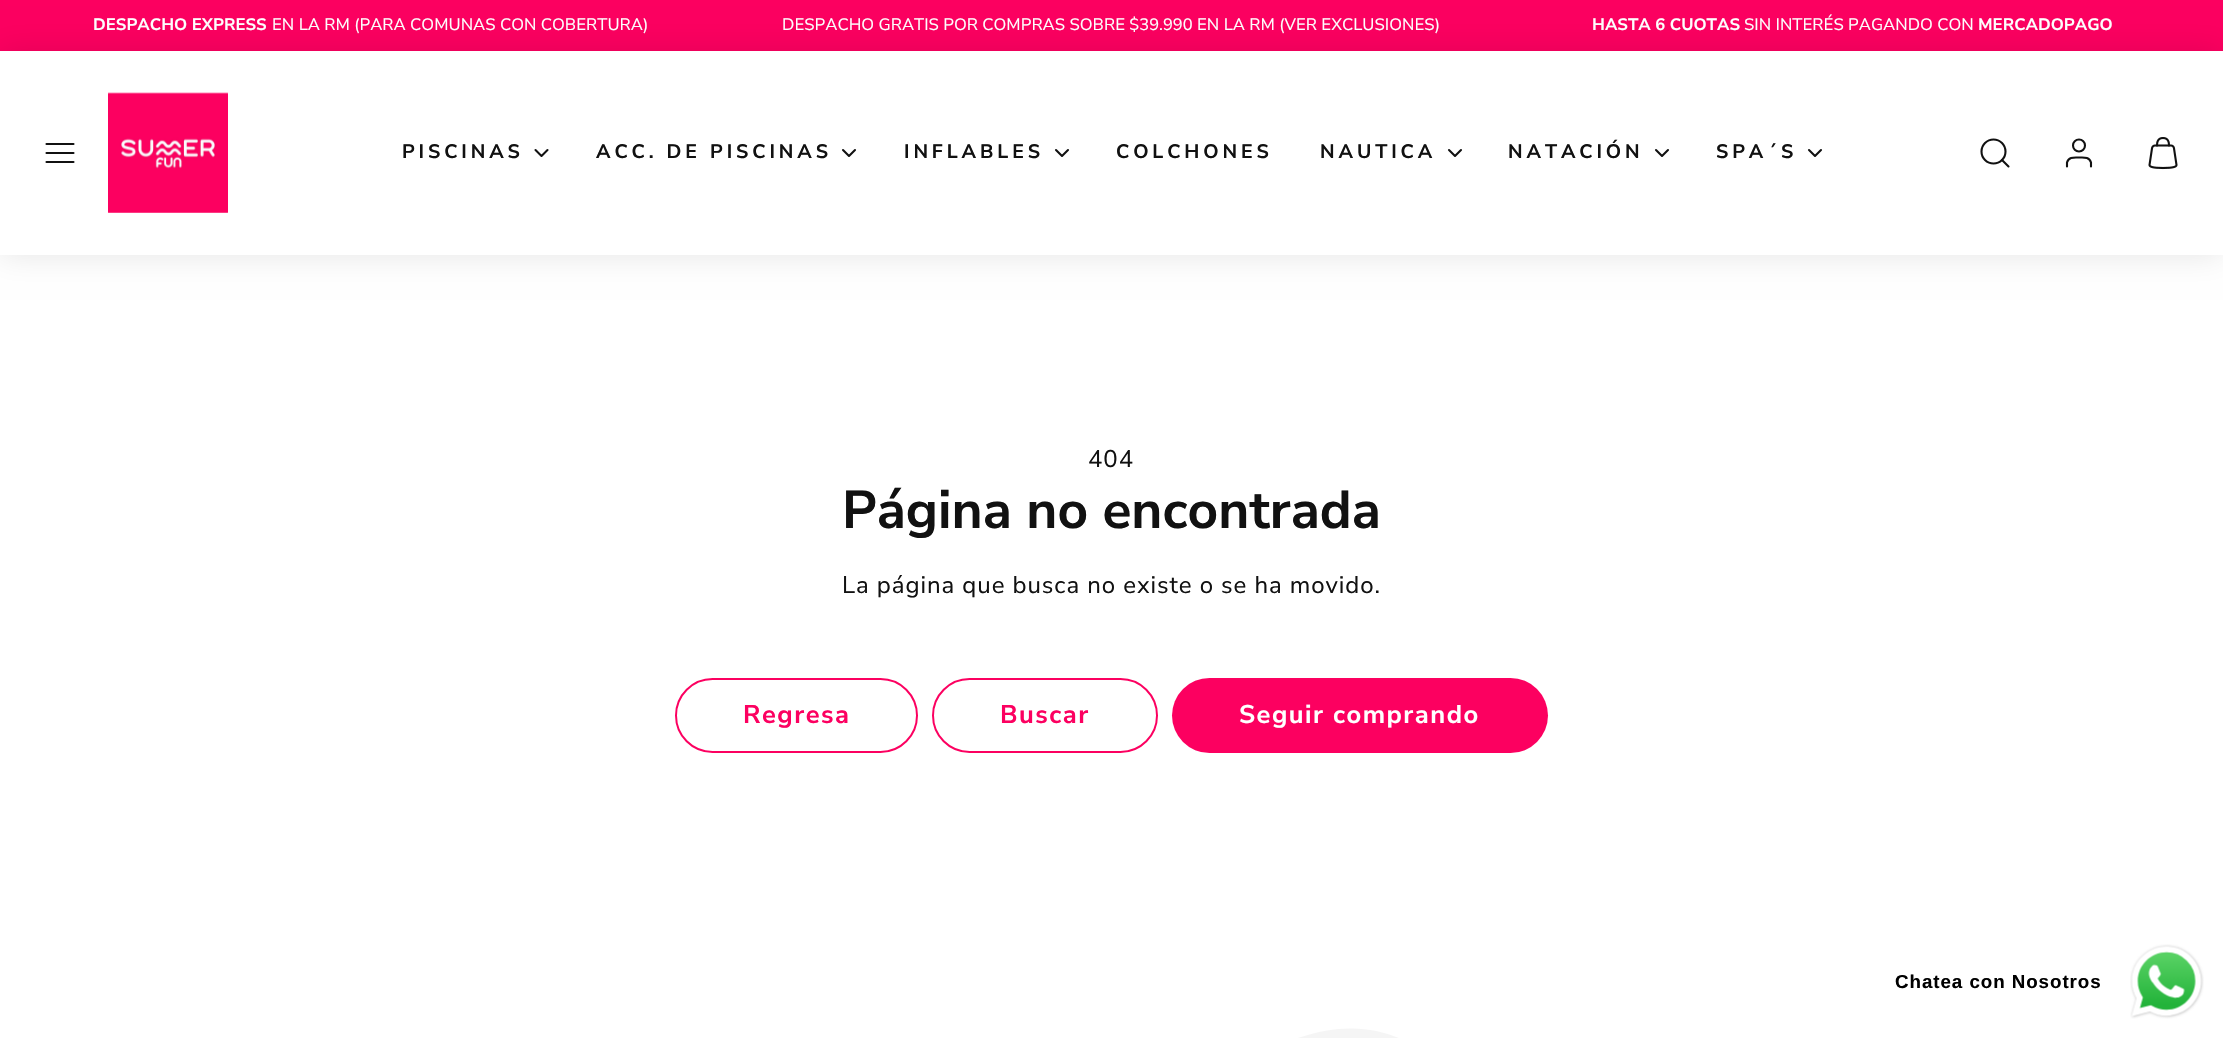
void draw(SkCanvas* c) {
SkPaint p;
p.setAntiAlias(true);
auto F=[&](const char* family, int weight, float size, bool italic = false){SkFontStyle style(weight, SkFontStyle::kNormal_Width,italic ? SkFontStyle::kItalic_Slant : SkFontStyle::kUpright_Slant);SkFont result(fontMgr->matchFamilyStyle(family, style), size);result.setSubpixel(true);return result;};
auto T=[&](const char* s, float x, float y, const SkFont& font){c->drawString(s, x, y, font, p);};
auto L=[&](const char* s, float x, float y, const SkFont& font, const SkPaint& ink, float letter, float word){std::vector<SkGlyphID> glyphs(font.countText(s, strlen(s), SkTextEncoding::kUTF8));std::vector<float> xs(glyphs.size());font.textToGlyphs(s, strlen(s), SkTextEncoding::kUTF8, glyphs);font.getXPos(glyphs, xs, x);float extra = 0;for (size_t i = 0; i < glyphs.size(); i++) {xs[i] += extra;extra += letter + word * (glyphs[i] == font.unicharToGlyph(' '));}c->drawTextBlob(SkTextBlob::MakeFromPosHGlyphs(glyphs, xs, y, font), 0, 0, ink);};
auto R=[&](float x, float y, float w, float h){c->drawRect(SkRect::MakeXYWH(x, y, w, h), p);};
auto Q=[&](float x, float y, float w, float h, float radius){c->drawRoundRect(SkRect::MakeXYWH(x, y, w, h), radius, radius, p);};
auto I=[&](const char* path, float x, float y, float w, float h){auto image = SkImages::DeferredFromEncodedData(SkData::MakeFromFileName(path));c->drawImageRect(image, SkRect::MakeXYWH(x, y, w, h), SkSamplingOptions());};
auto P=[&](const char* data, bool evenOdd = false){SkPath result = *SkParsePath::FromSVGString(data);if (evenOdd) result.setFillType(SkPathFillType::kEvenOdd);return result;};
c->clear(0xffffffff);
p.setColor(0xfffc0060);
R(0,0,2223,51);
auto f1 = F("Nunito Sans",700,16.5);
p.setColor(0xffffffff);
T("DESPACHO EXPRESS",93,30,f1);
auto f2 = F("Nunito Sans",400,16.5);
T("EN LA RM (PARA COMUNAS CON COBERTURA)",272,30,f2);
T("DESPACHO GRATIS POR COMPRAS SOBRE $39.990 EN LA RM (VER EXCLUSIONES)",782,30,f2);
T("HASTA 6 CUOTAS",1592,30,f1);
T("SIN INTERÉS PAGANDO CON",1744,30,f2);
T("MERCADOPAGO",1978,30,f1);
c->save();
c->clipPath(P("M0 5h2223v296h-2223zm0 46h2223v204h-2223z",true),true);
p.setColor(0x1a000000);
p.setMaskFilter(SkMaskFilter::MakeBlur(kNormal_SkBlurStyle, 15));
c->drawRect(SkRect::MakeXYWH(0,51,2223,204),p);
p.setMaskFilter(nullptr);
c->restore();
p.setStroke(true);
p.setStrokeWidth(2.1);
p.setStrokeCap(SkPaint::kRound_Cap);
p.setStrokeJoin(SkPaint::kRound_Join);
p.setColor(0xff111111);
c->drawPath(P("M46.5 153h27m-27-9h27m-27 18h27"),p);
I("1.png",108,92,120,121);
auto f3 = F("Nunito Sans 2",700,19.5);
p.setStroke(false);
L("PISCINAS",402,158,f3,p,3.9,0);
p.setStroke(true);
c->drawPath(P("M535.5 150l6 6l6-6"),p);
p.setStroke(false);
L("ACC. DE PISCINAS",596,158,f3,p,3.9,0);
p.setStroke(true);
c->drawPath(P("M843 150l6 6l6-6"),p);
p.setStroke(false);
L("INFLABLES",904,158,f3,p,3.9,0);
p.setStroke(true);
c->drawPath(P("M1056 150l6 6l6-6"),p);
p.setStroke(false);
L("COLCHONES",1116,158,f3,p,3.9,0);
L("NAUTICA",1320,158,f3,p,3.9,0);
p.setStroke(true);
c->drawPath(P("M1449 150l6 6l6-6"),p);
p.setStroke(false);
L("NATACIÓN",1508,158,f3,p,3.9,0);
p.setStroke(true);
c->drawPath(P("M1656 150l6 6l6-6"),p);
p.setStroke(false);
L("SPA´S",1716,158,f3,p,3.9,0);
p.setStroke(true);
c->drawPath(P("M1809 150l6 6l6-6"),p);
p.setStrokeCap(SkPaint::kButt_Cap);
p.setStrokeJoin(SkPaint::kMiter_Join);
c->drawCircle(1993.5,151.5,12,p);
p.setStrokeCap(SkPaint::kRound_Cap);
p.setStrokeJoin(SkPaint::kRound_Join);
c->drawPath(P("M2008.5 166.5l-6.5-6.5"),p);
c->drawPath(P("M2091 166.5v-4c-1.5-6-7.5-5-12-5c-4.5 0-10.5-1-12 5v4"),p);
p.setStrokeCap(SkPaint::kButt_Cap);
p.setStrokeJoin(SkPaint::kMiter_Join);
c->drawCircle(2079,145.5,6,p);
I("2.png",2148,137,30,33);
auto f4 = F("Nunito Sans 2",400,24);
p.setStroke(false);
L("404",1088,467,f4,p,.95,0);
auto f5 = F("Nunito Sans 2",700,53.25);
T("Página no encontrada",842,528,f5);
L("La página que busca no existe o se ha movido.",842,593,f4,p,.95,0);
p.setStroke(true);
p.setStrokeWidth(2);
p.setColor(0xfffc0060);
c->drawRoundRect(SkRect::MakeXYWH(676,679,241,73),36.5,36.5,p);
auto f6 = F("Nunito Sans 2",700,25.5);
p.setStroke(false);
L("Regresa",743,723,f6,p,1.5,0);
p.setStroke(true);
c->drawRoundRect(SkRect::MakeXYWH(933,679,224,73),36.5,36.5,p);
p.setStroke(false);
L("Buscar",1000,723,f6,p,1.5,0);
Q(1172,678,376,75,37.5);
p.setColor(0xffffffff);
L("Seguir comprando",1239,723,f6,p,1.5,0);
auto f7 = F("Liberation Sans",700,18.75);
p.setColor(0xff000000);
L("Chatea con Nosotros",1895,988,f7,p,.95,0);
I("3.png",2130,944,74,75);
p.setColor(0xfff5f5f5);
c->drawPath(P("M2160 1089c-195-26-226 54-473 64c-247 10-234-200-435-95c-202 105-376 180-687 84c-282-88-399-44-565 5v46h2223v-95z"),p);
}
